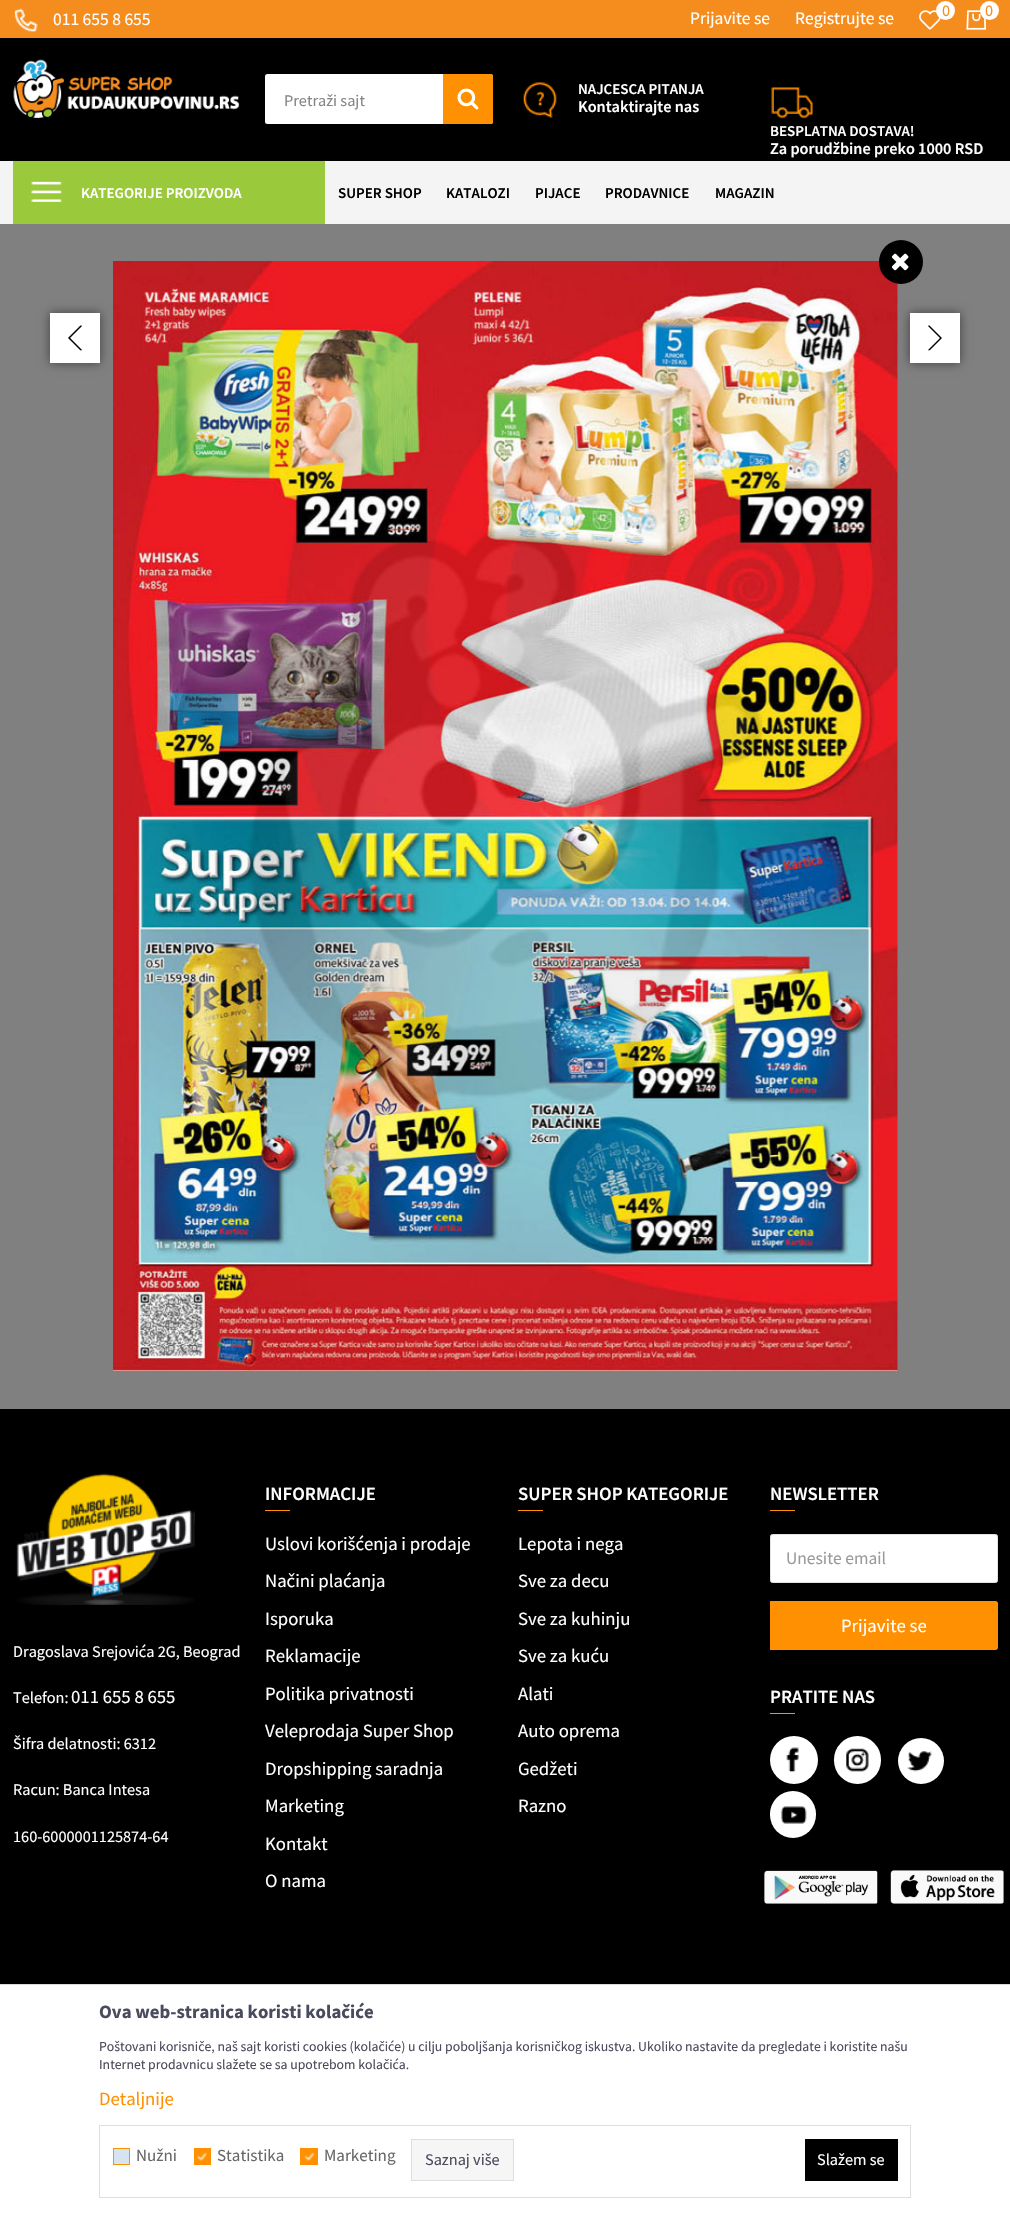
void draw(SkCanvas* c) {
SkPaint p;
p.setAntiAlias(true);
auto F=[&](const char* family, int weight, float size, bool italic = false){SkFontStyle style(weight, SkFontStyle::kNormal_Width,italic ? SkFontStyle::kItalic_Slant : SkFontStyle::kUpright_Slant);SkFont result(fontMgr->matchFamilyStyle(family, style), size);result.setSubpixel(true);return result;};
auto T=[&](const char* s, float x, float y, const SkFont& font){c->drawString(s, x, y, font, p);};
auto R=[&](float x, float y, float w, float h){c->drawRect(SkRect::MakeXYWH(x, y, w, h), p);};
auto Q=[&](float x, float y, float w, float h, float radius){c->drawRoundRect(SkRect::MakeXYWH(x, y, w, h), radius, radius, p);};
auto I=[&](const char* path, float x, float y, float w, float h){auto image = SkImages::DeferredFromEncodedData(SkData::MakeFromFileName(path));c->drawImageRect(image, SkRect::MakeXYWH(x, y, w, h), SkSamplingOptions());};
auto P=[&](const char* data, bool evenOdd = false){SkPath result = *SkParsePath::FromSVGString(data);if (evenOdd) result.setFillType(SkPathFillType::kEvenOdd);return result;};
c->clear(0xff808080);
p.setColor(0xff000000);
R(0,38,1010,123);
p.setColor(0xfff58d1e);
R(0,0,1010,38);
I("1.png",14,8,24,24);
auto f1 = F("Source Sans Pro",400,17.5);
p.setColor(0xffffffff);
T("011 655 8 655",53,25,f1);
T("Prijavite se",690,24,f1);
T("Registrujte se",795,24,f1);
I("2.png",919,10,22,20);
c->drawCircle(945.5,10.5,9.5,p);
auto f2 = F("Source Sans Pro",400,16.25);
p.setColor(0xfff58d1e);
T("0",942,16,f2);
I("3.png",966,10,21,20);
p.setColor(0xffffffff);
c->drawCircle(989.5,10.5,9.5,p);
p.setColor(0xfff58d1e);
T("0",985,16,f2);
I("4.png",13,59,227,59);
p.setColor(0xffffffff);
Q(265,74,228,50,2.5);
p.setColor(0xff858585);
T("Pretraži sajt",284,106,f2);
p.setColor(0xffff9002);
c->drawPath(P("M443 74h47.5c1.5 0 2.5 1 2.5 2.5v45c0 1.5-1 2.5-2.5 2.5h-47.5z"),p);
I("5.png",457,88,22,22);
I("6.png",523,82,34,36);
auto f3 = F("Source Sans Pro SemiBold",600,15);
p.setColor(0xffffffff);
T("NAJCESCA PITANJA",578,94,f3);
auto f4 = F("Source Sans Pro SemiBold",600,16.25);
T("Kontaktirajte nas",578,112,f4);
I("7.png",771,87,42,32);
T("BESPLATNA DOSTAVA!",770,136,f3);
T("Za porudžbine preko 1000 RSD",770,154,f4);
p.setColor(0xfff4f4f4);
R(0,161,1010,63);
p.setColor(0xff9ac93b);
R(13,161,312,63);
I("8.png",31,181,31,21);
p.setColor(0xffffffff);
T("KATEGORIJE PROIZVODA",81,198,f3);
p.setColor(0xff000000);
T("SUPER SHOP",338,198,f3);
T("KATALOZI",446,198,f3);
T("PIJACE",535,198,f3);
T("PRODAVNICE",605,198,f3);
T("MAGAZIN",715,198,f3);
I("10.png",113,261,785,1110);
c->drawCircle(901,262,22,p);
I("9.png",891,253,18,18);
p.setColor(0x80000000);
p.setMaskFilter(SkMaskFilter::MakeBlur(kNormal_SkBlurStyle, 5));
c->drawRect(SkRect::MakeXYWH(50,313,50,50),p);
p.setMaskFilter(nullptr);
p.setColor(0xffffffff);
R(50,313,50,50);
I("11.png",68,325,14,26);
p.setColor(0x80000000);
p.setMaskFilter(SkMaskFilter::MakeBlur(kNormal_SkBlurStyle, 5));
c->drawRect(SkRect::MakeXYWH(910,313,50,50),p);
p.setMaskFilter(nullptr);
p.setColor(0xffffffff);
R(910,313,50,50);
p.setColor(0xff000000);
c->drawPath(P("M942 338l-12.5-12.5h-1l-.5 .5l12 12l-12 12l.5 .5l.5-.5l.5 .5z"),p);
R(0,1409,1010,575);
auto f5 = F("Source Sans Pro SemiBold",600,18.75);
p.setColor(0xffffffff);
T("INFORMACIJE",265,1500,f5);
p.setColor(0xffff9002);
R(265,1510,25,1);
auto f6 = F("Source Sans Pro",400,18.75);
p.setColor(0xffffffff);
T("Uslovi korišćenja i prodaje",265,1550,f6);
T("Načini plaćanja",265,1587,f6);
T("Isporuka",265,1625,f6);
T("Reklamacije",265,1662,f6);
T("Politika privatnosti",265,1700,f6);
T("Veleprodaja Super Shop",265,1737,f6);
T("Dropshipping saradnja",265,1775,f6);
T("Marketing",265,1812,f6);
T("Kontakt",265,1850,f6);
T("O nama",265,1887,f6);
T("SUPER SHOP KATEGORIJE",518,1500,f5);
p.setColor(0xffff9002);
R(518,1510,25,1);
p.setColor(0xffffffff);
T("Lepota i nega",518,1550,f6);
T("Sve za decu",518,1587,f6);
T("Sve za kuhinju",518,1625,f6);
T("Sve za kuću",518,1662,f6);
T("Alati",518,1700,f6);
T("Auto oprema",518,1737,f6);
T("Gedžeti",518,1775,f6);
T("Razno",518,1812,f6);
T("NEWSLETTER",770,1500,f5);
p.setColor(0xffff9002);
R(770,1510,25,1);
p.setColor(0xffffffff);
c->drawRoundRect(SkRect::MakeXYWH(770.5,1534.5,227,48),2,2,p);
p.setStroke(true);
p.setStrokeWidth(1);
p.setColor(0xffe2e2e2);
c->drawRoundRect(SkRect::MakeXYWH(770.5,1534.5,227,48),2,2,p);
p.setStroke(false);
p.setColor(0xff999999);
T("Unesite email",786,1564,f1);
p.setColor(0xffff9002);
c->drawPath(P("M770 1601h225.5c1.5 0 2.5 1 2.5 2.5v44c0 1.5-1 2.5-2.5 2.5h-225.5z"),p);
p.setColor(0xffffffff);
T("Prijavite se",841,1632,f6);
T("PRATITE NAS",770,1703,f5);
p.setColor(0xffff9002);
R(770,1713,25,1);
p.setColor(0xffffffff);
c->drawCircle(794,1760,24,p);
I("12.png",786,1747,13,25);
Q(834,1736,47,48,23.5);
I("13.png",846,1748,23,24);
c->drawCircle(921,1761,23,p);
I("14.png",907,1751,25,21);
Q(770,1791,46,47,23);
I("15.png",781,1806,26,18);
I("16.png",764,1870,114,34);
I("17.png",890,1870,114,34);
I("18.png",16,1473,179,132);
T("Dragoslava Srejovića 2G, Beograd",13,1657,f2);
T("Telefon:",13,1703,f2);
T("011 655 8 655",71,1703,f6);
T("Šifra delatnosti: 6312",13,1749,f2);
T("Racun: Banca Intesa",13,1795,f2);
T("160-6000001125874-64",13,1842,f2);
p.setStroke(true);
p.setColor(0xffd9d9d9);
c->drawRect(SkRect::MakeXYWH(-.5,1984.5,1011,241),p);
p.setStroke(false);
p.setColor(0xffffffff);
R(0,1985,1010,240);
auto f7 = F("Source Sans Pro",700,18.75);
p.setColor(0xff4a4b5c);
T("Ova web-stranica koristi kolačiće",99,2018,f7);
auto f8 = F("Source Sans Pro",400,13.75);
T("Poštovani korisniče, naš sajt koristi cookies (kolačiće) u cilju poboljšanja korisničkog iskustva. Ukoliko nastavite da pregledate i koristite našu",99,2051,f8);
T("Internet prodavnicu slažete se sa upotrebom kolačića.",99,2069,f8);
p.setColor(0xffff9002);
T("Detaljnije",99,2105,f6);
p.setStroke(true);
p.setColor(0xffdedede);
c->drawRect(SkRect::MakeXYWH(99.5,2125.5,811,72),p);
p.setStroke(false);
p.setColor(0xffd6e3f0);
c->drawRect(SkRect::MakeXYWH(113.5,2148.5,16,16),p);
p.setStroke(true);
p.setColor(0xffff9002);
c->drawRect(SkRect::MakeXYWH(113.5,2148.5,16,16),p);
auto f9 = F("Source Sans Pro",400,17);
p.setStroke(false);
p.setColor(0xff686868);
T("Nužni",136,2161,f9);
p.setColor(0xffff9002);
R(194,2148,17,17);
I("19.png",197,2152,10,9);
p.setColor(0xff686868);
T("Statistika",217,2161,f9);
p.setColor(0xffff9002);
R(300,2148,18,17);
I("20.png",304,2152,11,9);
p.setColor(0xff686868);
T("Marketing",324,2161,f9);
p.setColor(0xfff6f6f6);
c->drawRect(SkRect::MakeXYWH(411.5,2139.5,102,41),p);
p.setStroke(true);
p.setColor(0xffdedede);
c->drawRect(SkRect::MakeXYWH(411.5,2139.5,102,41),p);
p.setStroke(false);
p.setColor(0xff4a4b5c);
T("Saznaj više",425,2165,f2);
p.setColor(0xff000000);
R(805,2139,93,42);
p.setColor(0xffffffff);
T("Slažem se",817,2165,f2);
}
